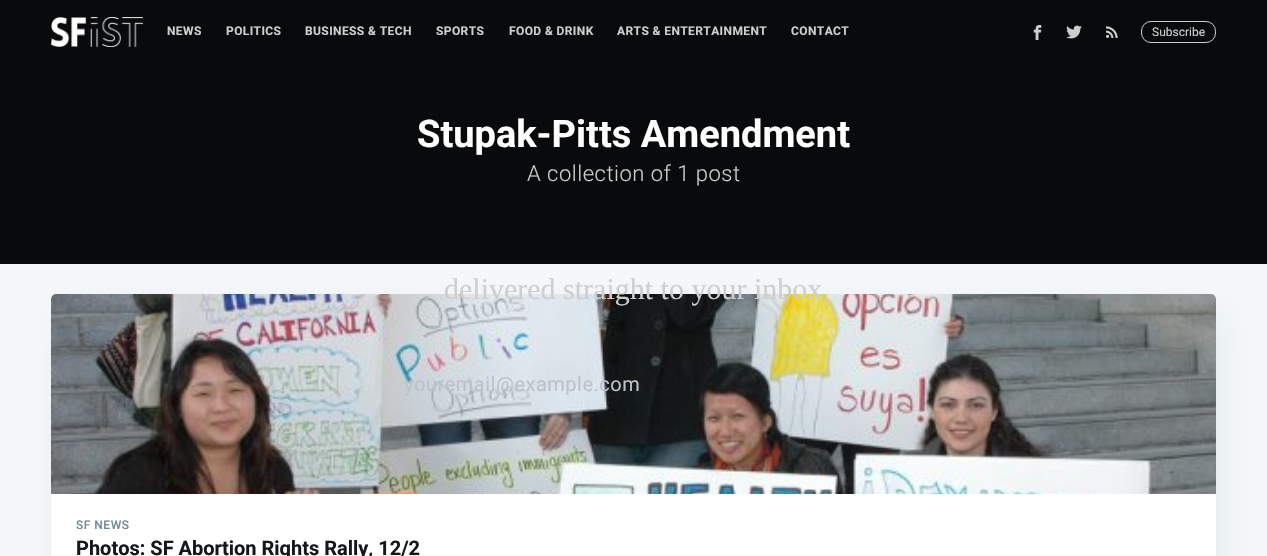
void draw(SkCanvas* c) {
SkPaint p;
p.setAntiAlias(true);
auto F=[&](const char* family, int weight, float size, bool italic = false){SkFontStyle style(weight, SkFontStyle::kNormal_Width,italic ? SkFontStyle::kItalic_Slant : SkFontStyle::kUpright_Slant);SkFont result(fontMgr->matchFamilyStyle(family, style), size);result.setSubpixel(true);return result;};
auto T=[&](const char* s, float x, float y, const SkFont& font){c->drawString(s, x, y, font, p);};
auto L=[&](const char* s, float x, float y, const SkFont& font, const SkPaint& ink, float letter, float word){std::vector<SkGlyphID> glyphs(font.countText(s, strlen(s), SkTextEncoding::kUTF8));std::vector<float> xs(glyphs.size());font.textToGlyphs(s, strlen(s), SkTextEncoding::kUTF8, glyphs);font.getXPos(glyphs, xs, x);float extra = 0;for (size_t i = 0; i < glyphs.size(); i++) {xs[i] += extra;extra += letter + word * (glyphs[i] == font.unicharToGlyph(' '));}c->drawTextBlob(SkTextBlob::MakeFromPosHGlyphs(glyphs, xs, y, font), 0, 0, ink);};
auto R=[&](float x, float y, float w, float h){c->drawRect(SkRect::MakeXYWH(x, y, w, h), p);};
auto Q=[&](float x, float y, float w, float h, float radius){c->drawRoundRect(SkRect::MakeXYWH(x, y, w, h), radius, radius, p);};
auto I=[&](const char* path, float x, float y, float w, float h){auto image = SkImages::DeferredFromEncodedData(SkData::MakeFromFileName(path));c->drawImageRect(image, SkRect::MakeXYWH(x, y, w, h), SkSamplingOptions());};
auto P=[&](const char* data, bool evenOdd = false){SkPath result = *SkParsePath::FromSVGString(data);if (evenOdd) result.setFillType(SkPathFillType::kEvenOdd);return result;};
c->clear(0xfff4f8fb);
p.setColor(0xff090a0b);
R(0,0,1267,264);
I("1.png",51,17,92,30);
auto f1 = F("Roboto",700,12);
p.setColor(0xffcecece);
L("NEWS",167,35,f1,p,.4,0);
L("POLITICS",226,35,f1,p,.4,0);
L("BUSINESS & TECH",305,35,f1,p,.4,0);
L("SPORTS",436,35,f1,p,.4,0);
L("FOOD & DRINK",509,35,f1,p,.4,0);
L("ARTS & ENTERTAINMENT",617,35,f1,p,.4,0);
L("CONTACT",791,35,f1,p,.4,0);
I("2.png",1033,25,9,15);
I("3.png",1066,25,16,14);
I("4.png",1106,26,12,12);
p.setStroke(true);
p.setStrokeWidth(1);
c->drawRoundRect(SkRect::MakeXYWH(1141.5,21.5,74,21),9.5,9.5,p);
auto f2 = F("Roboto",400,12);
p.setStroke(false);
T("Subscribe",1152,36,f2);
auto f3 = F("Roboto",700,38);
p.setColor(0xffffffff);
T("Stupak-Pitts Amendment",417,147,f3);
auto f4 = F("Roboto",300,22);
p.setColor(0xffcecece);
L("A collection of 1 post",527,181,f4,p,.5,0);
p.setColor(0x0f272c31);
p.setMaskFilter(SkMaskFilter::MakeBlur(kNormal_SkBlurStyle, 19));
c->drawRoundRect(SkRect::MakeXYWH(59,308,1165,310),5,5,p);
p.setMaskFilter(nullptr);
p.setColor(0xffffffff);
Q(51,294,1165,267,5);
p.setColor(0xffc5d2d9);
c->drawPath(P("M56 294h1155c3 0 5 2 5 5v195h-1165v-195c0-3 2-5 5-5z"),p);
I("5.png",51,294,1165,200);
auto f5 = F("Roboto",500,12);
p.setColor(0xff738a94);
L("SF NEWS",76,529,f5,p,.5,0);
auto f6 = F("Roboto",700,20);
p.setColor(0xff15171a);
T("Photos: SF Abortion Rights Rally, 12/2",76,555,f6);
p.setColor(0xff090a0b);
c->drawPath(P("M1217 29.5l21.5 21.5l-1.5 1.5l-21.5-21.5z"),p);
auto f7 = F("Liberation Serif",400,30);
p.setColor(0xffcecece);
T("delivered straight to your inbox",444,299,f7);
auto f8 = F("Roboto",400,20);
p.setColor(0xffbbc2c9);
L("youremail@example.com",404,391,f8,p,.5,0);
}
